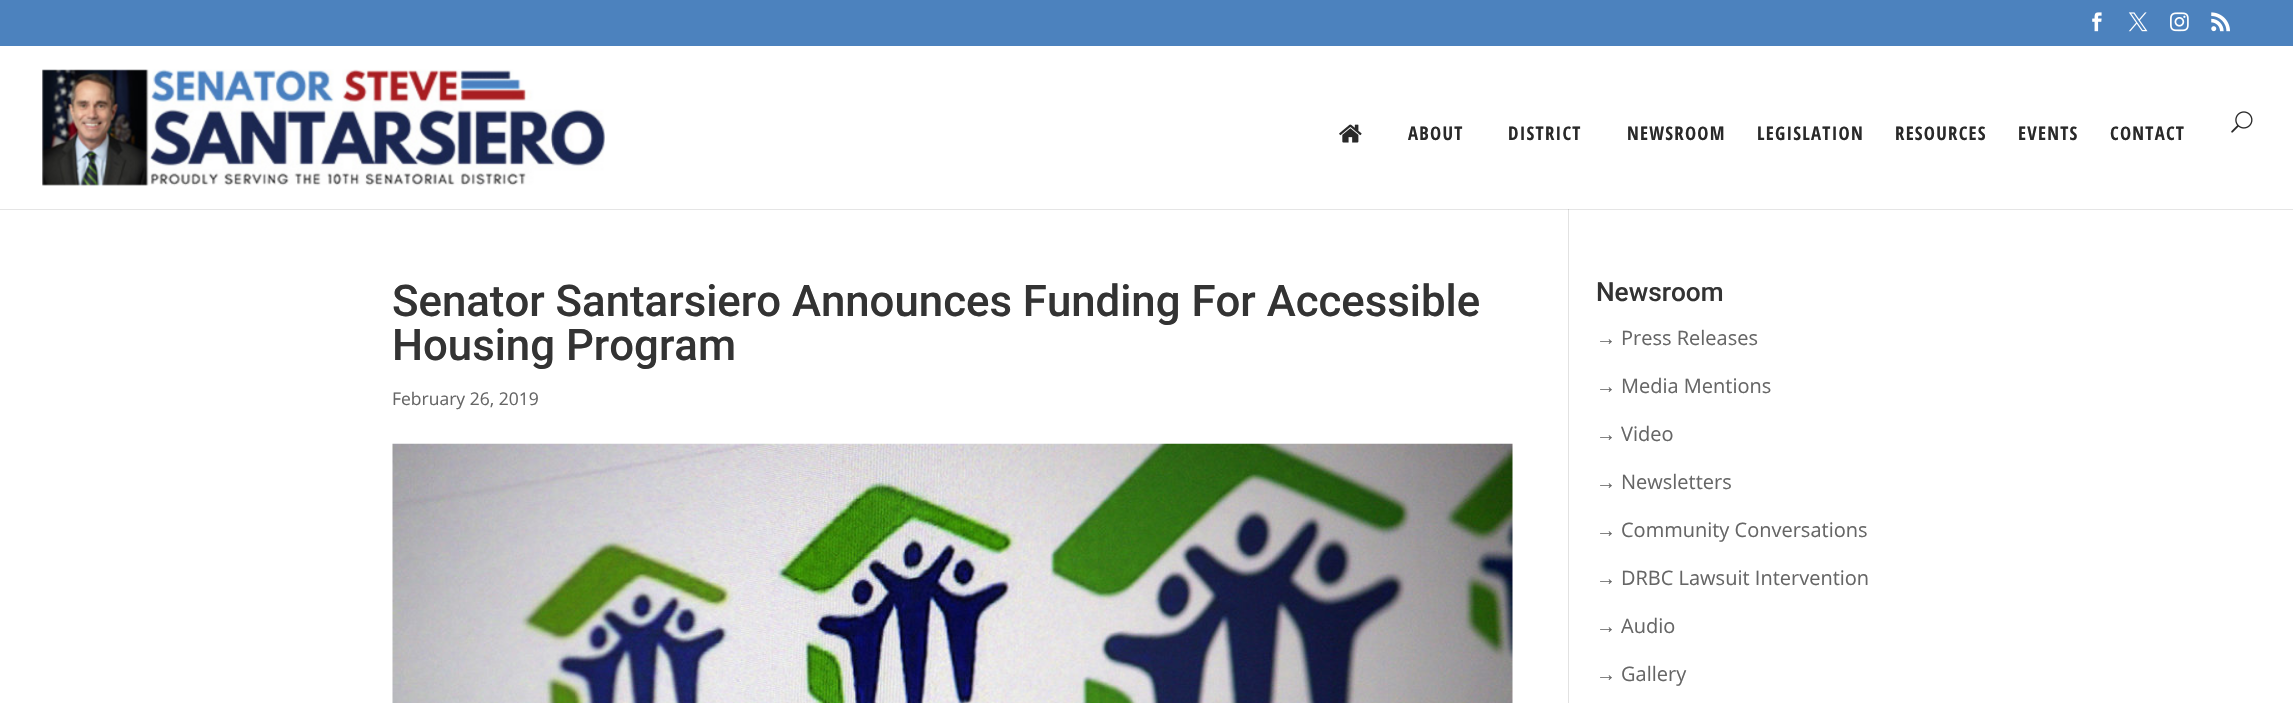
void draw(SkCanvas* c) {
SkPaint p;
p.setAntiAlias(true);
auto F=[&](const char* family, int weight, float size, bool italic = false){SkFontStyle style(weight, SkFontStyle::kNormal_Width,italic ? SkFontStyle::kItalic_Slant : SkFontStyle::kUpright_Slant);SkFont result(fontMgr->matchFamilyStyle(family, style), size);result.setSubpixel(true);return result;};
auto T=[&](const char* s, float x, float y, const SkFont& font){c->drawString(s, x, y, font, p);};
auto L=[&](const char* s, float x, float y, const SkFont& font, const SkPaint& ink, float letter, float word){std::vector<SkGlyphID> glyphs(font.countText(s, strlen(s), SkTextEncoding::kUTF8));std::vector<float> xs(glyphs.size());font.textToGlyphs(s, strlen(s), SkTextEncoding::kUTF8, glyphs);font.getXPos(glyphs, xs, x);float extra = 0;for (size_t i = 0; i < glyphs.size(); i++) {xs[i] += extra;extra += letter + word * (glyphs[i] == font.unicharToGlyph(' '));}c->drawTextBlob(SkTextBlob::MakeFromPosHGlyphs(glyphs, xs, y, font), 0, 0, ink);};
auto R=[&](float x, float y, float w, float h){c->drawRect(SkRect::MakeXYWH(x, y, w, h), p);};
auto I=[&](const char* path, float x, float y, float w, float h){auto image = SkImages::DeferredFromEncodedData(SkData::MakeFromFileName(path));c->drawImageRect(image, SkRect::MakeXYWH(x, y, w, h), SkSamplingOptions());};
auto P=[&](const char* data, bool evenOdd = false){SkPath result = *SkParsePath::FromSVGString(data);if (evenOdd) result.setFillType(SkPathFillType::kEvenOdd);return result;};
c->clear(0xffffffff);
p.setColor(0xff4c82be);
R(0,0,2293,46);
I("1.png",2092,12,10,20);
I("2.png",2128,12,20,20);
I("3.png",2170,12,19,20);
I("4.png",2211,12,19,20);
p.setColor(0xffe2e2e2);
R(1568,208,1,495);
p.setColor(0x1a000000);
c->drawPath(P("M0 209v1h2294v-162v161z"),p);
p.setColor(0xffffffff);
R(1568,208,1,1);
I("5.png",42,69,563,117);
I("6.png",1339,124,23,19);
auto f1 = F("Open Sans Condensed",700,18.75);
p.setColor(0xff292929);
L("ABOUT",1408,140,f1,p,1.25,0);
L("DISTRICT",1508,140,f1,p,1.25,0);
L("NEWSROOM",1627,140,f1,p,1.25,0);
L("LEGISLATION",1757,140,f1,p,1.25,0);
L("RESOURCES",1895,140,f1,p,1.25,0);
L("EVENTS",2018,140,f1,p,1.25,0);
L("CONTACT",2110,140,f1,p,1.25,0);
I("7.png",2231,111,22,22);
auto f2 = F("Roboto",500,43.75);
p.setColor(0xff333333);
T("Senator Santarsiero Announces Funding For Accessible",392,316,f2);
T("Housing Program",392,360,f2);
auto f3 = F("Open Sans",400,17.5);
p.setColor(0xff666666);
T("February 26, 2019",392,405,f3);
I("8.png",392,443,1121,260);
auto f4 = F("Roboto",500,26.25);
p.setColor(0xff333333);
T("Newsroom",1596,301,f4);
auto f5 = F("Liberation Sans",400,20);
p.setColor(0xff666666);
T("→",1596,345,f5);
auto f6 = F("Open Sans",400,20);
T("Press Releases",1621,345,f6);
T("→",1596,393,f5);
T("Media Mentions",1621,393,f6);
T("→",1596,441,f5);
T("Video",1621,441,f6);
T("→",1596,489,f5);
T("Newsletters",1621,489,f6);
T("→",1596,537,f5);
T("Community Conversations",1621,537,f6);
T("→",1596,585,f5);
T("DRBC Lawsuit Intervention",1621,585,f6);
T("→",1596,633,f5);
T("Audio",1621,633,f6);
T("→",1596,681,f5);
T("Gallery",1621,681,f6);
}
